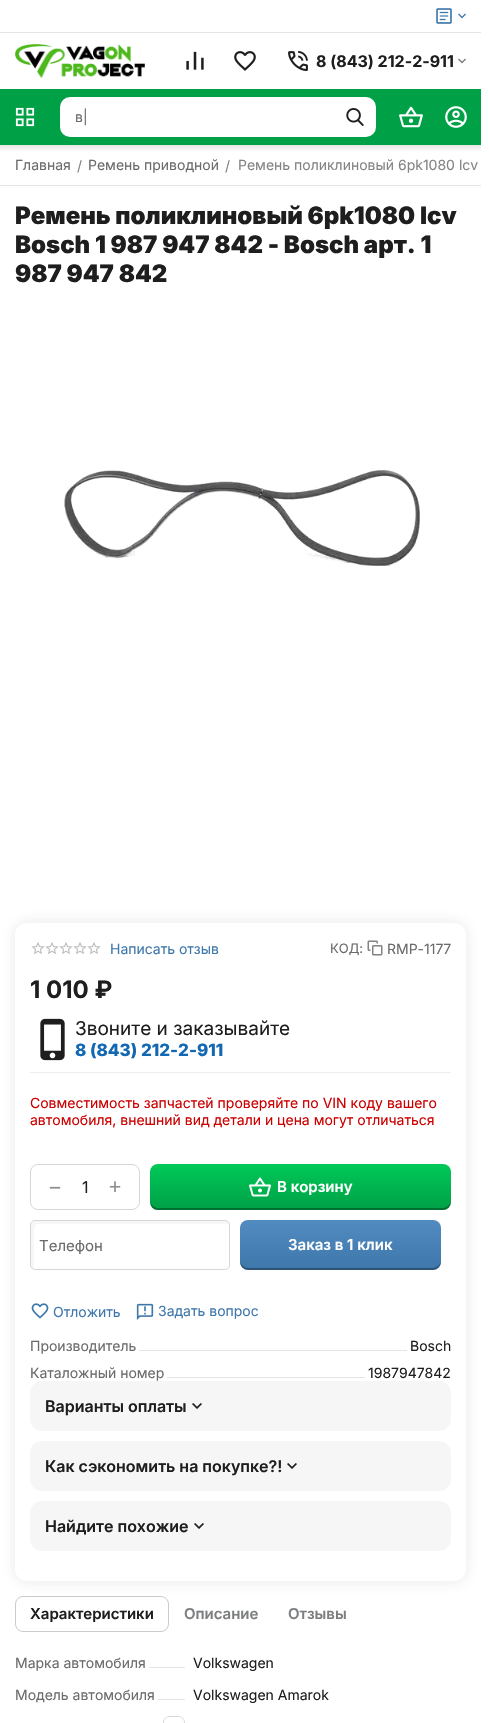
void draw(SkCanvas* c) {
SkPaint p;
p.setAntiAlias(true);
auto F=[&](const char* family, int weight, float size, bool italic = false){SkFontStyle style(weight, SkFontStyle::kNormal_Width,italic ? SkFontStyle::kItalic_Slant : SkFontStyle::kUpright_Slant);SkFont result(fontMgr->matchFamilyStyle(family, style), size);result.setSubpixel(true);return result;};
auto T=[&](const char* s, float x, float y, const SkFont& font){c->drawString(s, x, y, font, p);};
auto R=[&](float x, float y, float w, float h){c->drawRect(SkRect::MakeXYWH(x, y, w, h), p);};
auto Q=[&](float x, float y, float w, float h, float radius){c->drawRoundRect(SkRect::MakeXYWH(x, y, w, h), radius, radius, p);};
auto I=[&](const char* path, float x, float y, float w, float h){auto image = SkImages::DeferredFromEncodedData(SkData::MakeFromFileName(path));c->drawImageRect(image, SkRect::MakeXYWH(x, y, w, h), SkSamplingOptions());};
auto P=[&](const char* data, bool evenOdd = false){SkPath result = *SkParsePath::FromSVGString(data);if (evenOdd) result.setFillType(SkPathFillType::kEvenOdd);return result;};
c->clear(0xffffffff);
p.setColor(0xffe4e4e4);
R(0,32,481,1);
I("1.png",436,8,16,16);
I("2.png",458,13,8,6);
I("3.png",15,44,130,34);
I("4.png",186,51,18,19);
I("5.png",234,51,22,20);
I("6.png",288,51,20,20);
auto f1 = F("Inter",700,16);
p.setColor(0xff1e1e1e);
T("8 (843) 212-2-911",316,67,f1);
I("7.png",458,58,8,6);
p.setColor(0xff00a046);
R(0,89,481,56);
I("8.png",15,107,20,20);
p.setColor(0xffffffff);
Q(60,97,316,40,10);
auto f2 = F("Inter",400,14);
p.setColor(0xff6b6b6b);
T("в|",75,122,f2);
I("9.png",346,108,18,18);
I("10.png",399,106,24,22);
I("11.png",445,106,22,22);
{
const SkColor colors[] = {0xffe6e6e6,0xffffffff};
const float stops[] = {0,1};
const SkPoint ends[] = {{241,145}, {241,152}};
p.setShader(SkGradientShader::MakeLinear(ends, colors, stops, 2, SkTileMode::kClamp));
p.setAlpha(255);
}
R(0,145,481,6);
p.setShader(nullptr);
p.setColor(0xffe4e4e4);
R(0,185,481,1);
p.setColor(0xff6b6b6b);
T("Главная",15,170,f2);
p.setColor(0xff848484);
T("/",77,171,f2);
p.setColor(0xff6b6b6b);
T("Ремень приводной",88,170,f2);
p.setColor(0xff848484);
T("/",225,171,f2);
T("Ремень поликлиновый 6pk1080 lcv",238,170,f2);
auto f3 = F("Inter",900,24);
p.setColor(0xff1e1e1e);
T("Ремень поликлиновый 6pk1080 lcv",15,224,f3);
T("Bosch 1 987 947 842 - Bosch арт. 1",15,253,f3);
T("987 947 842",15,282,f3);
I("12.png",15,313,451,451);
p.setColor(0x1a1e1e1e);
p.setMaskFilter(SkMaskFilter::MakeBlur(kNormal_SkBlurStyle, 7.5));
c->drawRoundRect(SkRect::MakeXYWH(15,923,451,658),12,12,p);
p.setMaskFilter(nullptr);
p.setColor(0xffffffff);
Q(15,923,451,658,12);
I("13.png",31,942,70,12);
p.setColor(0xff3e77aa);
T("Написать отзыв",110,954,f2);
auto f4 = F("Inter",400,13);
p.setColor(0xff6b6b6b);
T("КОД:",330,953,f4);
I("14.png",367,940,16,16);
T("RMP-1177",387,954,f2);
auto f5 = F("Inter",700,24);
p.setColor(0xff1e1e1e);
T("1 010 ₽",30,998,f5);
p.setColor(0xffeeeeee);
R(30,1072,421,1);
I("15.png",40,1018,25,43);
auto f6 = F("Inter",400,19);
p.setColor(0xff1e1e1e);
T("Звоните и заказывайте",75,1035,f6);
auto f7 = F("Inter",800,17);
p.setColor(0xff1268b2);
T("8 (843) 212-2-911",75,1056,f7);
p.setColor(0xffcc0000);
T("Совместимость запчастей проверяйте по VIN коду вашего",30,1108,f2);
T("автомобиля, внешний вид детали и цена могут отличаться",30,1125,f2);
{
const SkColor colors[] = {0xff00a046,0xff00c958};
const float stops[] = {0,1};
const SkPoint ends[] = {{301,1210}, {301,1164}};
p.setShader(SkGradientShader::MakeLinear(ends, colors, stops, 2, SkTileMode::kClamp));
p.setAlpha(255);
}
Q(150,1164,301,46,8);
p.setShader(nullptr);
p.setColor(0x4d000000);
c->drawPath(P("M150 1200c0 4 1 9 6 10h287c6 0 8-5 8-10c0 4-4 8-8 8h-285c-4 0-8-4-8-8z"),p);
I("16.png",249,1177,22,20);
auto f8 = F("Inter",600,15);
p.setColor(0xffffffff);
T("В корзину",277,1192,f8);
p.setColor(0xfff7f7f7);
c->drawPath(P("M38 1224h191c0-2-2-3-4-3h-190c-2 0-4 2-4 4v40c0 2 1 4 3 4v-34c0-3-1-11 4-11z"),p);
p.setStroke(true);
p.setStrokeWidth(1);
p.setColor(0xffd7d7d7);
c->drawRoundRect(SkRect::MakeXYWH(30.5,1220.5,199,49),4.5,4.5,p);
auto f9 = F("Inter",400,15);
p.setStroke(false);
p.setColor(0xff6b6b6b);
T("Телефон",39,1251,f9);
{
const SkColor colors[] = {0xff3e77aa,0xff518bc0};
const float stops[] = {0,1};
const SkPoint ends[] = {{341,1270}, {341,1220}};
p.setShader(SkGradientShader::MakeLinear(ends, colors, stops, 2, SkTileMode::kClamp));
p.setAlpha(255);
}
Q(240,1220,201,50,8);
p.setShader(nullptr);
p.setColor(0x4d000000);
c->drawPath(P("M240 1260v2c0 4 4 8 8 8h185c4 0 8-4 8-8v-2c0 4-4 8-8 8h-185c-4 0-8-4-8-8z"),p);
p.setColor(0xffffffff);
T("Заказ в 1 клик",288,1250,f8);
I("17.png",31,1303,18,16);
p.setColor(0xff3e77aa);
T("Отложить",53,1317,f2);
I("18.png",136,1303,18,17);
T("Задать вопрос",158,1316,f2);
p.setStroke(true);
p.setColor(0xffd7d7d7);
c->drawRoundRect(SkRect::MakeXYWH(30.5,1164.5,109,45),7.5,7.5,p);
auto f10 = F("DejaVu Sans Mono",400,20);
p.setStroke(false);
p.setColor(0xff8f8f8f);
T("−",49,1194,f10);
auto f11 = F("Inter",400,16);
p.setColor(0xff1e1e1e);
T("1",82,1193,f11);
p.setColor(0xff8f8f8f);
T("+",109,1193,f10);
p.setColor(0xff6b6b6b);
T("Производитель",30,1351,f2);
p.setColor(0xffe4e4e4);
R(139,1350,268,1);
p.setColor(0xff1e1e1e);
T("Bosch",410,1351,f2);
p.setColor(0xff6b6b6b);
T("Каталожный номер",30,1378,f2);
p.setColor(0xffe4e4e4);
R(167,1377,198,1);
p.setColor(0xff1e1e1e);
T("1987947842",368,1378,f2);
p.setColor(0xfff6f6f6);
Q(30,1381,421,50,12);
auto f12 = F("Inter",600,16);
p.setColor(0xff1e1e1e);
T("Варианты оплаты",45,1412,f12);
I("19.png",192,1403,10,6);
p.setColor(0xfff6f6f6);
Q(30,1441,421,50,12);
p.setColor(0xff1e1e1e);
T("Как сэкономить на покупке?!",45,1472,f12);
I("19.png",287,1463,10,6);
p.setColor(0xfff6f6f6);
Q(30,1501,421,50,12);
p.setColor(0xff1e1e1e);
T("Найдите похожие",45,1532,f12);
I("19.png",194,1523,10,6);
p.setStroke(true);
p.setColor(0xffcbcbcb);
c->drawRoundRect(SkRect::MakeXYWH(15.5,1596.5,153,35),7.5,7.5,p);
p.setStroke(false);
p.setColor(0xff1e1e1e);
T("Характеристики",30,1619,f8);
p.setColor(0xff7c7e80);
T("Описание",184,1619,f8);
T("Отзывы",288,1619,f8);
p.setColor(0xff6b6b6b);
T("Марка автомобиля",15,1668,f2);
p.setColor(0xffe4e4e4);
R(149,1667,36,1);
p.setColor(0xff1e1e1e);
T("Volkswagen",193,1668,f2);
p.setColor(0xff6b6b6b);
T("Модель автомобиля",15,1700,f2);
p.setColor(0xffe4e4e4);
R(158,1699,27,1);
p.setColor(0xff1e1e1e);
T("Volkswagen Amarok",193,1700,f2);
p.setStroke(true);
p.setColor(0xffd7d7d7);
c->drawRoundRect(SkRect::MakeXYWH(163.5,1716.5,21,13),5.5,5.5,p);
p.setStrokeWidth(4);
p.setColor(0xffffffff);
c->drawRoundRect(SkRect::MakeXYWH(161,1714,26,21),8,8,p);
}
